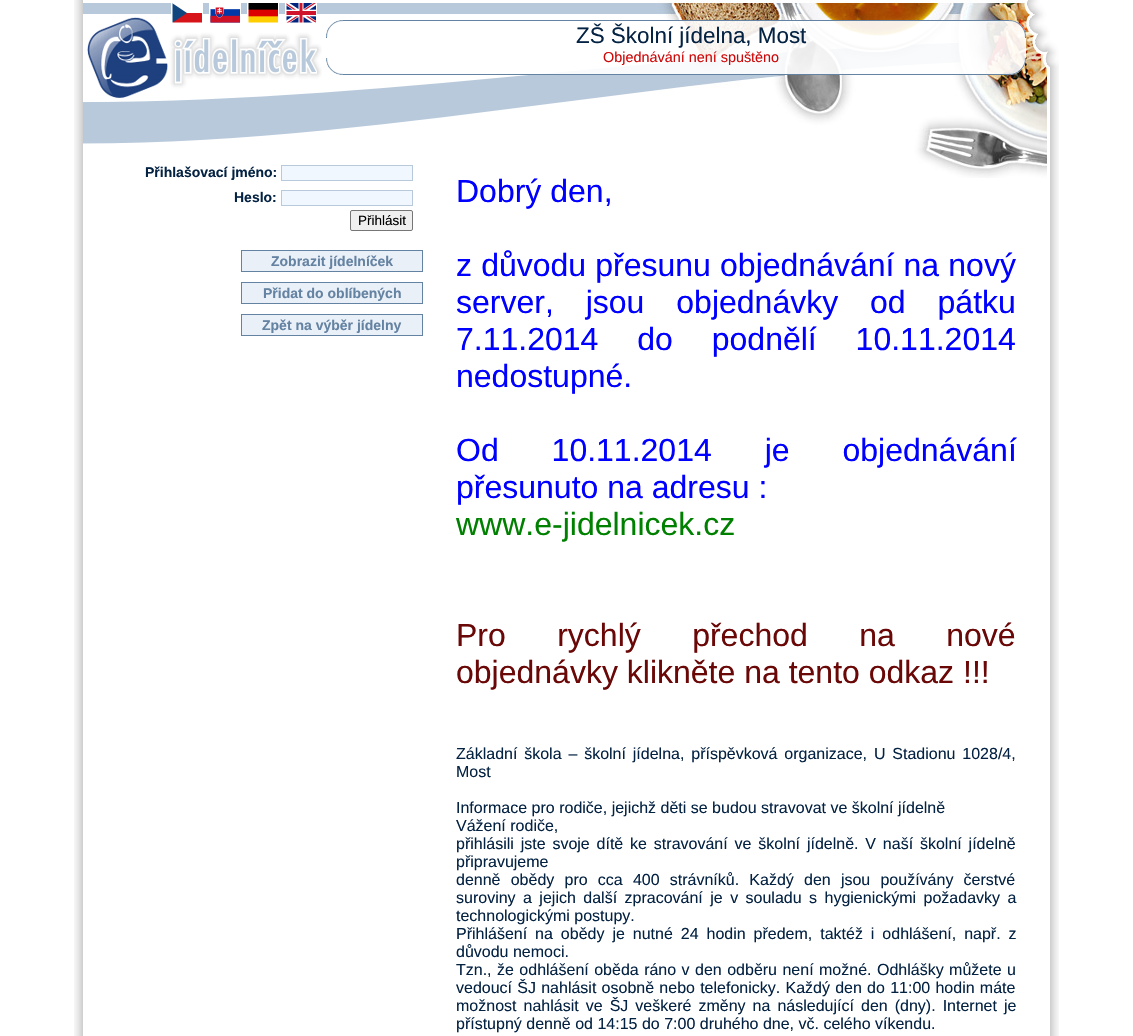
void draw(SkCanvas* c) {
SkPaint p;
p.setAntiAlias(true);
auto F=[&](const char* family, int weight, float size, bool italic = false){SkFontStyle style(weight, SkFontStyle::kNormal_Width,italic ? SkFontStyle::kItalic_Slant : SkFontStyle::kUpright_Slant);SkFont result(fontMgr->matchFamilyStyle(family, style), size);result.setSubpixel(true);return result;};
auto T=[&](const char* s, float x, float y, const SkFont& font){c->drawString(s, x, y, font, p);};
auto L=[&](const char* s, float x, float y, const SkFont& font, const SkPaint& ink, float letter, float word){std::vector<SkGlyphID> glyphs(font.countText(s, strlen(s), SkTextEncoding::kUTF8));std::vector<float> xs(glyphs.size());font.textToGlyphs(s, strlen(s), SkTextEncoding::kUTF8, glyphs);font.getXPos(glyphs, xs, x);float extra = 0;for (size_t i = 0; i < glyphs.size(); i++) {xs[i] += extra;extra += letter + word * (glyphs[i] == font.unicharToGlyph(' '));}c->drawTextBlob(SkTextBlob::MakeFromPosHGlyphs(glyphs, xs, y, font), 0, 0, ink);};
auto R=[&](float x, float y, float w, float h){c->drawRect(SkRect::MakeXYWH(x, y, w, h), p);};
auto I=[&](const char* path, float x, float y, float w, float h){auto image = SkImages::DeferredFromEncodedData(SkData::MakeFromFileName(path));c->drawImageRect(image, SkRect::MakeXYWH(x, y, w, h), SkSamplingOptions());};
c->clear(0xffffffff);
I("1.png",74,0,584,180);
I("6.png",87,17,235,81);
p.setStroke(true);
p.setStrokeWidth(1);
p.setColor(0xffffffff);
c->drawRect(SkRect::MakeXYWH(171.5,2.5,31,21),p);
I("2.png",172,3,30,20);
c->drawRect(SkRect::MakeXYWH(209.5,2.5,31,21),p);
I("3.png",210,3,30,20);
c->drawRect(SkRect::MakeXYWH(247.5,2.5,31,21),p);
I("4.png",248,3,30,20);
c->drawRect(SkRect::MakeXYWH(285.5,2.5,31,21),p);
I("5.png",286,3,30,20);
I("7.png",658,0,366,178);
I("8.png",1024,0,35,180);
I("9.png",74,180,985,856);
auto f1 = F("Liberation Sans",700,14);
p.setStroke(false);
p.setColor(0xff042242);
T("Přihlašovací jméno:",145,177,f1);
p.setColor(0xfff0f7ff);
c->drawRect(SkRect::MakeXYWH(281.5,165.5,131,15),p);
p.setStroke(true);
p.setColor(0xffb8c9db);
c->drawRect(SkRect::MakeXYWH(281.5,165.5,131,15),p);
p.setStroke(false);
p.setColor(0xff042242);
T("Heslo:",234,202,f1);
p.setColor(0xfff0f7ff);
c->drawRect(SkRect::MakeXYWH(281.5,190.5,131,15),p);
p.setStroke(true);
p.setColor(0xffb8c9db);
c->drawRect(SkRect::MakeXYWH(281.5,190.5,131,15),p);
p.setStroke(false);
p.setColor(0xffefefef);
c->drawRoundRect(SkRect::MakeXYWH(350.5,210.5,62,20),1.5,1.5,p);
p.setStroke(true);
p.setColor(0xff767676);
c->drawRoundRect(SkRect::MakeXYWH(350.5,210.5,62,20),1.5,1.5,p);
auto f2 = F("Liberation Sans",400,13.5);
p.setStroke(false);
p.setColor(0xff000000);
T("Přihlásit",358,225,f2);
p.setColor(0xffe9f0f8);
c->drawRect(SkRect::MakeXYWH(241.5,250.5,181,21),p);
p.setStroke(true);
p.setColor(0xff6482a1);
c->drawRect(SkRect::MakeXYWH(241.5,250.5,181,21),p);
p.setStroke(false);
T("Zobrazit jídelníček",271,266,f1);
p.setColor(0xffe9f0f8);
c->drawRect(SkRect::MakeXYWH(241.5,282.5,181,21),p);
p.setStroke(true);
p.setColor(0xff6482a1);
c->drawRect(SkRect::MakeXYWH(241.5,282.5,181,21),p);
p.setStroke(false);
T("Přidat do oblíbených",263,298,f1);
p.setColor(0xffe9f0f8);
c->drawRect(SkRect::MakeXYWH(241.5,314.5,181,21),p);
p.setStroke(true);
p.setColor(0xff6482a1);
c->drawRect(SkRect::MakeXYWH(241.5,314.5,181,21),p);
p.setStroke(false);
T("Zpět na výběr jídelny",262,330,f1);
I("10.png",326,20,700,18);
p.setColor(0xe6ffffff);
R(660,38,366,20);
auto f3 = F("Liberation Sans",400,22.4);
p.setColor(0xff042242);
T("ZŠ Školní jídelna, Most",576,43,f3);
I("11.png",326,58,700,17);
auto f4 = F("Liberation Sans",400,14.4);
p.setColor(0xffcd0a0a);
T("Objednávání není spuštěno",603,62,f4);
auto f5 = F("Liberation Sans",400,32);
p.setColor(0xff0000ff);
T("Dobrý den,",456,202,f5);
L("z důvodu přesunu objednávání na nový",456,276,f5,p,0,.25);
L("server, jsou objednávky od pátku",456,313,f5,p,0,23);
L("7.11.2014 do podnělí 10.11.2014",456,350,f5,p,0,30);
T("nedostupné.",456,387,f5);
L("Od 10.11.2014 je objednávání",456,461,f5,p,0,44);
T("přesunuto na adresu :",456,498,f5);
p.setColor(0xff008000);
T("www.e-jidelnicek.cz",456,535,f5);
p.setColor(0xff690807);
L("Pro rychlý přechod na nové",456,646,f5,p,0,42.5);
T("objednávky klikněte na tento odkaz !!!",456,683,f5);
auto f6 = F("Liberation Sans",400,16);
p.setColor(0xff042242);
L("Základní škola – školní jídelna, příspěvková organizace, U Stadionu 1028/4,",456,759,f6,p,0,2.4);
T("Most",456,777,f6);
T("Informace pro rodiče, jejichž děti se budou stravovat ve školní jídelně",456,813,f6);
T("Vážení rodiče,",456,831,f6);
L("přihlásili jste svoje dítě ke stravování ve školní jídelně. V naší školní jídelně",456,849,f6,p,0,2.4);
T("připravujeme",456,867,f6);
L("denně obědy pro cca 400 strávníků. Každý den jsou používány čerstvé",456,885,f6,p,0,5.75);
L("suroviny a jejich další zpracování je v souladu s hygienickými požadavky a",456,903,f6,p,0,3);
T("technologickými postupy.",456,921,f6);
L("Přihlášení na obědy je nutné 24 hodin předem, taktéž i odhlášení, např. z",456,939,f6,p,0,3.5);
T("důvodu nemoci.",456,957,f6);
L("Tzn., že odhlášení oběda ráno v den odběru není možné. Odhlášky můžete u",456,975,f6,p,0,1);
L("vedoucí ŠJ nahlásit osobně nebo telefonicky. Každý den do 11:00 hodin máte",456,993,f6,p,0,.8);
L("možnost nahlásit ve ŠJ veškeré změny na následující den (dny). Internet je",456,1011,f6,p,0,2.6);
T("přístupný denně od 14:15 do 7:00 druhého dne, vč. celého víkendu.",456,1029,f6);
}
